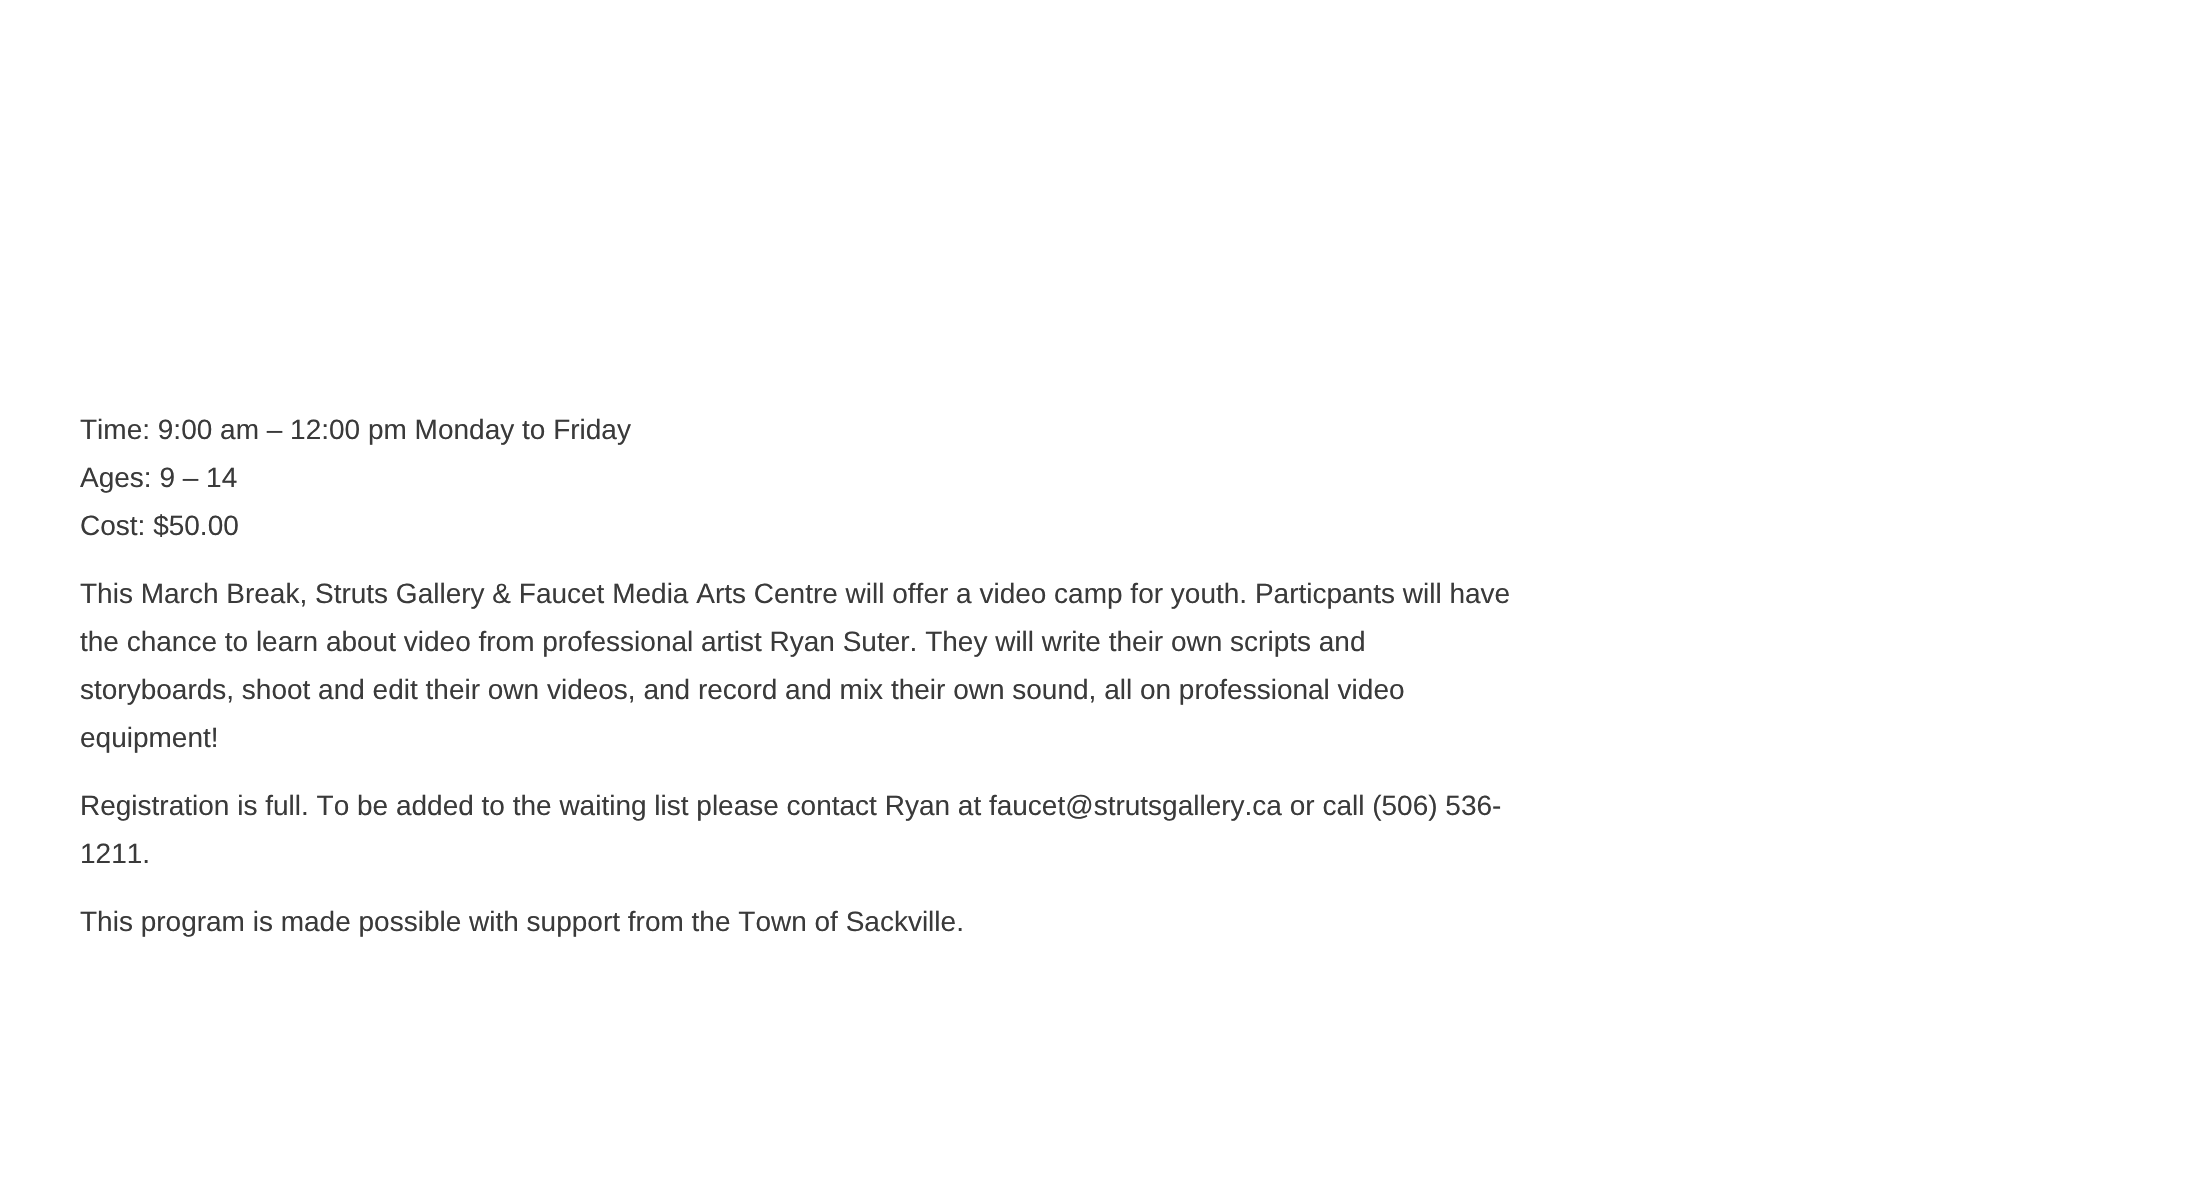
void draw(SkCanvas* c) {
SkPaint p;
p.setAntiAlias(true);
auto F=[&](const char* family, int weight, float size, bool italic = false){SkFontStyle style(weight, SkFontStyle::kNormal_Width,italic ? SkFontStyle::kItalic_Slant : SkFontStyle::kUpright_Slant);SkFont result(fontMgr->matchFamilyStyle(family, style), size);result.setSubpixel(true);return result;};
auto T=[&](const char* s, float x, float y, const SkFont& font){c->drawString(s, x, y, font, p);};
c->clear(0xffffffff);
auto f1 = F("Liberation Sans",400,28);
p.setColor(0xff3a3a3a);
T("Time: 9:00 am – 12:00 pm Monday to Friday",80,439,f1);
T("Ages: 9 – 14",80,487,f1);
T("Cost: $50.00",80,535,f1);
T("This March Break, Struts Gallery & Faucet Media Arts Centre will offer a video camp for youth. Particpants will have",80,603,f1);
T("the chance to learn about video from professional artist Ryan Suter. They will write their own scripts and",80,651,f1);
T("storyboards, shoot and edit their own videos, and record and mix their own sound, all on professional video",80,699,f1);
T("equipment!",80,747,f1);
T("Registration is full. To be added to the waiting list please contact Ryan at faucet@strutsgallery.ca or call (506) 536-",80,815,f1);
T("1211.",80,863,f1);
T("This program is made possible with support from the Town of Sackville.",80,931,f1);
}
